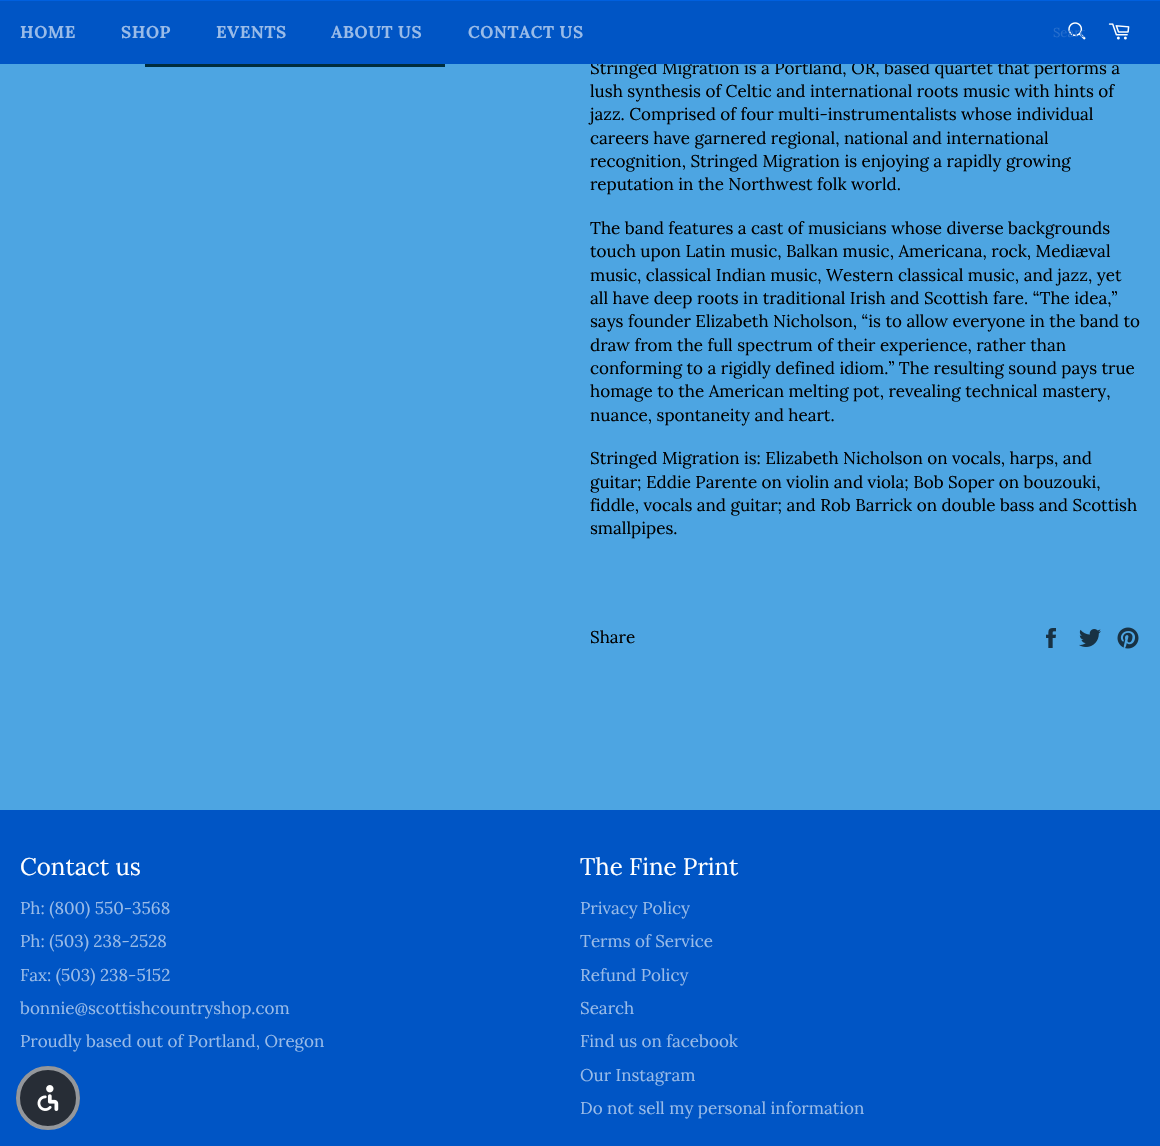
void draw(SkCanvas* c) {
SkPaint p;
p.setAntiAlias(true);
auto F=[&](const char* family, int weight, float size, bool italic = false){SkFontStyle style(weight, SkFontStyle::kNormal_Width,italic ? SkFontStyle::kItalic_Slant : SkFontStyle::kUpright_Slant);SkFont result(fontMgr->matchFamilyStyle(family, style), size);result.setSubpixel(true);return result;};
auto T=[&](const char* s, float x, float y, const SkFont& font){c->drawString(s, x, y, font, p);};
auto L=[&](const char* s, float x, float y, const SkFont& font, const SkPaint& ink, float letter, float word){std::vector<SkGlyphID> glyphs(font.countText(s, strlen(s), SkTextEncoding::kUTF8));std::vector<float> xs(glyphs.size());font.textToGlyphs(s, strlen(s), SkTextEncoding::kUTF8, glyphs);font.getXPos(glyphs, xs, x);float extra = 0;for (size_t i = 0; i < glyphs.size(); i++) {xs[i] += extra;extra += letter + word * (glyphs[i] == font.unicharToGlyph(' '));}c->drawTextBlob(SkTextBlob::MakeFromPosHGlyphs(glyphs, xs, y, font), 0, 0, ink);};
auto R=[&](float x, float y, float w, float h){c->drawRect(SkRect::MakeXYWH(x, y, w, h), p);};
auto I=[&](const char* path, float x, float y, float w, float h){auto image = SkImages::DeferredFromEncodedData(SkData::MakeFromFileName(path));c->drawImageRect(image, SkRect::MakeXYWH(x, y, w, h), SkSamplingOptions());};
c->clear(0xff4da5e2);
auto f1 = F("Lora",400,17);
p.setColor(0xff000000);
T("Stringed Migration is a Portland, OR, based quartet that performs a",590,74,f1);
p.setColor(0xff0055c5);
R(0,1,1160,63);
p.setColor(0xff0060df);
R(0,0,1160,1);
auto f2 = F("Lora",700,17);
p.setColor(0xff99bbe8);
L("HOME",20,38,f2,p,.5,0);
L("SHOP",121,38,f2,p,.5,0);
L("EVENTS",216,38,f2,p,.5,0);
L("ABOUT US",331,38,f2,p,.5,0);
L("CONTACT US",468,38,f2,p,.5,0);
I("1.png",1068,22,18,18);
c->save();
c->clipRect(SkRect::MakeXYWH(1053,24,32,17));
auto f3 = F("Lora",400,13);
p.setColor(0xff276fce);
T("Searc",1053,37,f3);
c->restore();
I("2.png",1108,23,22,17);
I("3.png",145,64,300,3);
p.setColor(0xff000000);
T("lush synthesis of Celtic and international roots music with hints of",590,97,f1);
T("jazz. Comprised of four multi-instrumentalists whose individual",590,120,f1);
T("careers have garnered regional, national and international",590,144,f1);
T("recognition, Stringed Migration is enjoying a rapidly growing",590,167,f1);
T("reputation in the Northwest folk world.",590,190,f1);
T("The band features a cast of musicians whose diverse backgrounds",590,234,f1);
T("touch upon Latin music, Balkan music, Americana, rock, Mediæval",590,257,f1);
T("music, classical Indian music, Western classical music, and jazz, yet",590,281,f1);
T("all have deep roots in traditional Irish and Scottish fare. “The idea,”",590,304,f1);
T("says founder Elizabeth Nicholson, “is to allow everyone in the band to",590,327,f1);
T("draw from the full spectrum of their experience, rather than",590,351,f1);
T("conforming to a rigidly defined idiom.” The resulting sound pays true",590,374,f1);
T("homage to the American melting pot, revealing technical mastery,",590,397,f1);
T("nuance, spontaneity and heart.",590,421,f1);
T("Stringed Migration is: Elizabeth Nicholson on vocals, harps, and",590,464,f1);
T("guitar; Eddie Parente on violin and viola; Bob Soper on bouzouki,",590,488,f1);
T("fiddle, vocals and guitar; and Rob Barrick on double bass and Scottish",590,511,f1);
T("smallpipes.",590,534,f1);
T("Share",590,643,f1);
I("4.png",1046,628,10,20);
I("5.png",1079,629,22,18);
I("6.png",1117,627,22,22);
p.setColor(0xff0055c5);
R(0,810,1160,336);
auto f4 = F("Lora",400,24);
p.setColor(0xffffffff);
T("Contact us",20,875,f4);
p.setColor(0xff99bbe8);
T("Ph: (800) 550-3568",20,914,f1);
T("Ph: (503) 238-2528",20,947,f1);
T("Fax: (503) 238-5152",20,981,f1);
T("bonnie@scottishcountryshop.com",20,1014,f1);
T("Proudly based out of Portland, Oregon",20,1047,f1);
p.setColor(0xffffffff);
T("The Fine Print",580,875,f4);
p.setColor(0xff99bbe8);
T("Privacy Policy",580,914,f1);
T("Terms of Service",580,947,f1);
T("Refund Policy",580,981,f1);
T("Search",580,1014,f1);
T("Find us on facebook",580,1047,f1);
T("Our Instagram",580,1081,f1);
T("Do not sell my personal information",580,1114,f1);
p.setColor(0xff272d36);
c->drawCircle(48,1098,32,p);
p.setStroke(true);
p.setStrokeWidth(4);
p.setColor(0x80ffffff);
c->drawCircle(48,1098,30,p);
I("7.png",37,1085,22,26);
}
